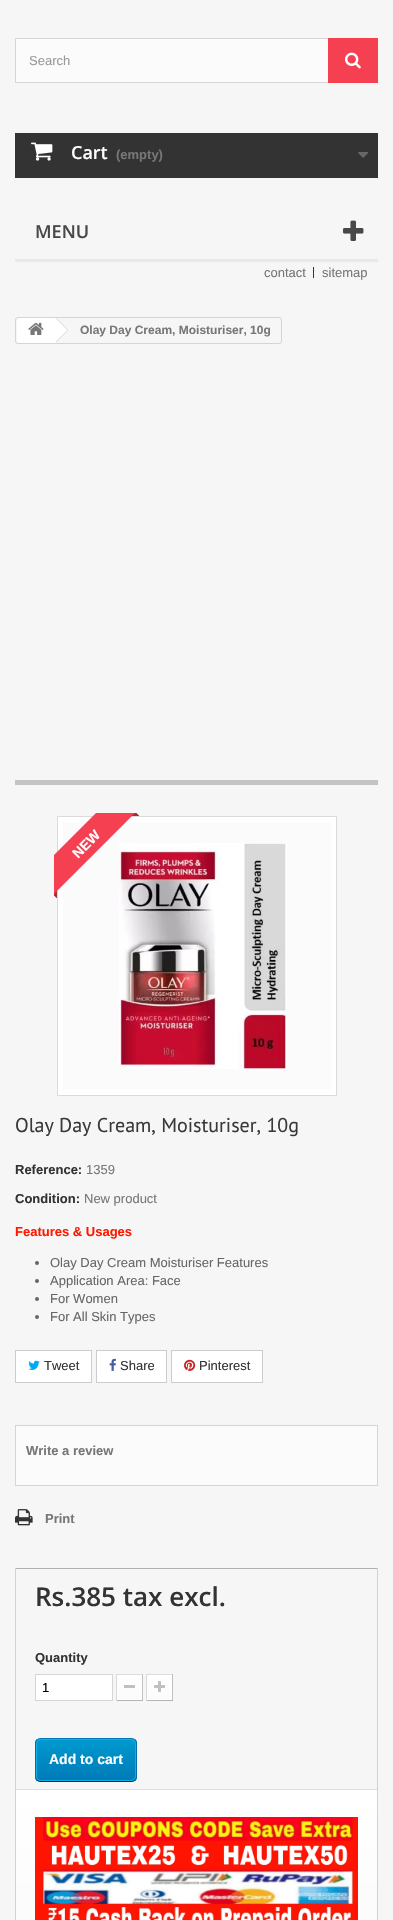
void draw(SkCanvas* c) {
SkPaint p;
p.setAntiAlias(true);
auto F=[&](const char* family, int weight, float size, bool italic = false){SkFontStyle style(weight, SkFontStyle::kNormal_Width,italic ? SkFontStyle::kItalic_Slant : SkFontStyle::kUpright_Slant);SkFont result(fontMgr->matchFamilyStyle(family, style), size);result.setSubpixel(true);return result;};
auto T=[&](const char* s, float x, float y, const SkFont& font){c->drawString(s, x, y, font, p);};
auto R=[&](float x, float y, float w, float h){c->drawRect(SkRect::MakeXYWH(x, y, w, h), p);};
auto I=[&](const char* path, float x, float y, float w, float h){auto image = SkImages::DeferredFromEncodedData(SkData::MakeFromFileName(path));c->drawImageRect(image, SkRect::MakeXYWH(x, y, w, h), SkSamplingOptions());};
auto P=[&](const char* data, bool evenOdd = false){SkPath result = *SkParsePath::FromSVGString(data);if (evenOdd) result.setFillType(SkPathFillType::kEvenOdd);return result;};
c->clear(0xfff6f6f6);
p.setColor(0xfffbfbfb);
R(16,39,312,43);
p.setStroke(true);
p.setStrokeWidth(1);
p.setColor(0xffd6d4d4);
c->drawRect(SkRect::MakeXYWH(15.5,38.5,362,44),p);
auto f1 = F("Liberation Sans",400,13);
p.setStroke(false);
p.setColor(0xff999999);
T("Search",29,65,f1);
p.setColor(0xfff44051);
R(328,38,50,45);
I("1.png",345,52,16,17);
p.setColor(0xff333333);
R(15,133,363,45);
I("2.png",31,142,22,19);
auto f2 = F("Open Sans",600,18);
p.setColor(0xffffffff);
T("Cart",71,159,f2);
auto f3 = F("Liberation Sans",700,13);
p.setColor(0xff777777);
T("(empty)",116,159,f3);
I("3.png",358,152,11,6);
p.setColor(0xffe9e9e9);
R(15,259,363,3);
p.setColor(0xff484848);
T("MENU",35,238,f2);
I("4.png",343,220,21,21);
p.setColor(0xff777777);
T("contact",264,277,f1);
p.setColor(0xff333333);
R(313,267,1,11);
p.setColor(0xff777777);
T("sitemap",322,277,f1);
p.setStroke(true);
p.setColor(0xffd6d4d4);
c->drawRoundRect(SkRect::MakeXYWH(15.5,317.5,266,26),2.5,2.5,p);
p.setStroke(false);
p.setColor(0xffffffff);
c->drawPath(P("M20 318h35v25h-35c-1.5 0-3-1.5-3-3v-19c0-1.5 1.5-3 3-3z"),p);
I("5.png",28,322,16,13);
c->drawPath(P("M57.5 318.5l10 10c.5 1 .5 2 0 3l-10 10c-1 .5-2 .5-3 0l-10-10c-.5-1-.5-2 0-3l10-10c1-.5 2-.5 3 0z"),p);
p.setColor(0xffd6d4d4);
c->drawPath(P("M56.5 318l11.5 11.5l-.5 .5l-11.5-11.5zm11 12l.5 .5l-11.5 11.5l-.5-.5z"),p);
auto f4 = F("Liberation Sans",700,12);
p.setColor(0xff777777);
T("Olay Day Cream, Moisturiser, 10g",80,334,f4);
p.setColor(0xffc4c4c4);
R(15,780,363,5);
p.setColor(0xffffffff);
c->drawRect(SkRect::MakeXYWH(57.5,816.5,279,279),p);
p.setStroke(true);
p.setColor(0xffdbdbdb);
c->drawRect(SkRect::MakeXYWH(57.5,816.5,279,279),p);
p.setStroke(false);
p.setColor(0xfffbfbfb);
R(63,822,268,268);
I("6.png",119,843,168,226);
c->save();
c->clipRect(SkRect::MakeXYWH(54,813,85,85));
p.setColor(0xfff44051);
c->drawPath(P("M30 879l92-92l19 20l-92 92z"),p);
p.setColor(0xffad2b34);
c->drawPath(P("M139.5 816h-8l4-4z"),p);
c->restore();
auto f5 = F("Liberation Sans",700,14);
p.setColor(0xffffffff);
c->save();
c->rotate(-45,78,859);
T("NEW",78,859,f5);
c->restore();
c->save();
c->clipRect(SkRect::MakeXYWH(54,813,85,85));
p.setColor(0xffad2b34);
c->drawPath(P("M57 890.5v8l-4-4z"),p);
c->restore();
auto f6 = F("PT Sans",400,20);
p.setColor(0xff3a3939);
T("Olay Day Cream, Moisturiser, 10g",15,1132,f6);
p.setColor(0xff333333);
T("Reference:",15,1174,f3);
p.setColor(0xff777777);
T("1359",86,1174,f1);
p.setColor(0xff333333);
T("Condition:",15,1203,f3);
p.setColor(0xff777777);
T("New product",84,1203,f1);
p.setColor(0xffff1900);
T("Features & Usages",15,1236,f3);
p.setColor(0xff666666);
c->drawCircle(37,1263,2,p);
T("Olay Day Cream Moisturiser Features",50,1267,f1);
c->drawCircle(37,1281,2,p);
T("Application Area: Face",50,1285,f1);
c->drawCircle(37,1299,2,p);
T("For Women",50,1303,f1);
c->drawCircle(37,1317,2,p);
T("For All Skin Types",50,1321,f1);
p.setColor(0xffffffff);
c->drawRect(SkRect::MakeXYWH(15.5,1350.5,76,32),p);
p.setStroke(true);
p.setColor(0xffcccccc);
c->drawRect(SkRect::MakeXYWH(15.5,1350.5,76,32),p);
I("7.png",28,1360,12,10);
p.setStroke(false);
p.setColor(0xff333333);
T("Tweet",44,1370,f1);
p.setColor(0xffffffff);
c->drawRect(SkRect::MakeXYWH(96.5,1350.5,70,32),p);
p.setStroke(true);
p.setColor(0xffcccccc);
c->drawRect(SkRect::MakeXYWH(96.5,1350.5,70,32),p);
I("8.png",109,1358,7,13);
p.setStroke(false);
p.setColor(0xff333333);
T("Share",120,1370,f1);
p.setColor(0xffffffff);
c->drawRect(SkRect::MakeXYWH(171.5,1350.5,91,32),p);
p.setStroke(true);
p.setColor(0xffcccccc);
c->drawRect(SkRect::MakeXYWH(171.5,1350.5,91,32),p);
I("9.png",184,1359,12,12);
p.setStroke(false);
p.setColor(0xff333333);
T("Pinterest",199,1370,f1);
p.setColor(0xfffbfbfb);
c->drawRect(SkRect::MakeXYWH(15.5,1425.5,362,60),p);
p.setStroke(true);
p.setColor(0xffd6d4d4);
c->drawRect(SkRect::MakeXYWH(15.5,1425.5,362,60),p);
p.setStroke(false);
p.setColor(0xff777777);
T("Write a review",26,1455,f3);
I("10.png",15,1509,18,17);
T("Print",45,1523,f3);
p.setColor(0xffb0afaf);
R(15,1568,363,1);
p.setColor(0xffd2d0d0);
R(377,1568,1,352);
R(15,1568,1,352);
auto f7 = F("Open Sans",600,26);
p.setColor(0xff333333);
T("Rs.385 tax excl.",35,1606,f7);
T("Quantity",35,1662,f3);
p.setColor(0xffffffff);
c->drawRect(SkRect::MakeXYWH(35.5,1674.5,77,26),p);
p.setStroke(true);
p.setColor(0xffd6d4d4);
c->drawRect(SkRect::MakeXYWH(35.5,1674.5,77,26),p);
p.setStroke(false);
p.setColor(0xff000000);
T("1",42,1692,f1);
p.setColor(0xffdedcdc);
R(116,1674,27,1);
p.setColor(0xffc1bfbf);
R(142,1674,1,27);
p.setColor(0xffb5b4b4);
R(116,1700,27,1);
p.setColor(0xffdad8d8);
R(116,1674,1,27);
{
const SkColor colors[] = {0xffffffff,0xfffbfbfb};
const float stops[] = {0,1};
const SkPoint ends[] = {{130,1676}, {130,1699}};
p.setShader(SkGradientShader::MakeLinear(ends, colors, stops, 2, SkTileMode::kClamp));
p.setAlpha(255);
}
R(118,1676,23,23);
p.setStroke(true);
p.setShader(nullptr);
p.setColor(0xffffffff);
c->drawRect(SkRect::MakeXYWH(117.5,1675.5,24,24),p);
p.setStroke(false);
p.setColor(0xffc0c0c0);
R(124,1685,11,3);
p.setColor(0xffdedcdc);
R(146,1674,27,1);
p.setColor(0xffc1bfbf);
R(172,1674,1,27);
p.setColor(0xffb5b4b4);
R(146,1700,27,1);
p.setColor(0xffdad8d8);
R(146,1674,1,27);
{
const SkColor colors[] = {0xffffffff,0xfffbfbfb};
const float stops[] = {0,1};
const SkPoint ends[] = {{160,1676}, {160,1699}};
p.setShader(SkGradientShader::MakeLinear(ends, colors, stops, 2, SkTileMode::kClamp));
p.setAlpha(255);
}
R(148,1676,23,23);
p.setStroke(true);
p.setShader(nullptr);
p.setColor(0xffffffff);
c->drawRect(SkRect::MakeXYWH(147.5,1675.5,24,24),p);
I("11.png",154,1681,11,11);
c->save();
c->clipPath(P("M40 1738h92c3 0 5 2 5 5v34c0 3-2 5-5 5h-92c-3 0-5-2-5-5v-34c0-3 2-5 5-5z"),true);
p.setStroke(false);
{
const SkColor colors[] = {0xff009ad0,0xff007ab7};
const float stops[] = {0,1};
const SkPoint ends[] = {{86,1739}, {86,1781}};
p.setShader(SkGradientShader::MakeLinear(ends, colors, stops, 2, SkTileMode::kClamp));
p.setAlpha(255);
}
R(35,1739,102,42);
c->restore();
p.setStroke(true);
p.setShader(nullptr);
p.setColor(0xff0079b6);
c->drawPath(P("M37 1740c.5-1 2-1.5 3-1.5h92c1 0 2.5 .5 3 1.5"),p);
p.setColor(0xff006fa8);
c->drawPath(P("M135 1740c1 .5 1.5 2 1.5 3v34c0 1-.5 2.5-1.5 3"),p);
p.setColor(0xff012740);
c->drawPath(P("M135 1780c-.5 1-2 1.5-3 1.5h-92c-1 0-2.5-.5-3-1.5"),p);
p.setColor(0xff006fa8);
c->drawPath(P("M37 1780c-1-.5-1.5-2-1.5-3v-34c0-1 .5-2.5 1.5-3"),p);
p.setColor(0xff06b2e6);
c->drawRoundRect(SkRect::MakeXYWH(36.5,1739.5,99,41),4.5,4.5,p);
p.setStroke(false);
p.setColor(0xffffffff);
T("Add to cart",49,1764,f5);
{
const SkColor colors[] = {0xffffffff,0xfffbfbfb};
const float stops[] = {0,1};
const SkPoint ends[] = {{197,1790}, {197,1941}};
p.setShader(SkGradientShader::MakeLinear(ends, colors, stops, 2, SkTileMode::kClamp));
p.setAlpha(255);
}
R(16,1790,361,130);
p.setShader(nullptr);
p.setColor(0xffdfdede);
R(16,1789,361,1);
I("12.png",35,1817,323,103);
}
